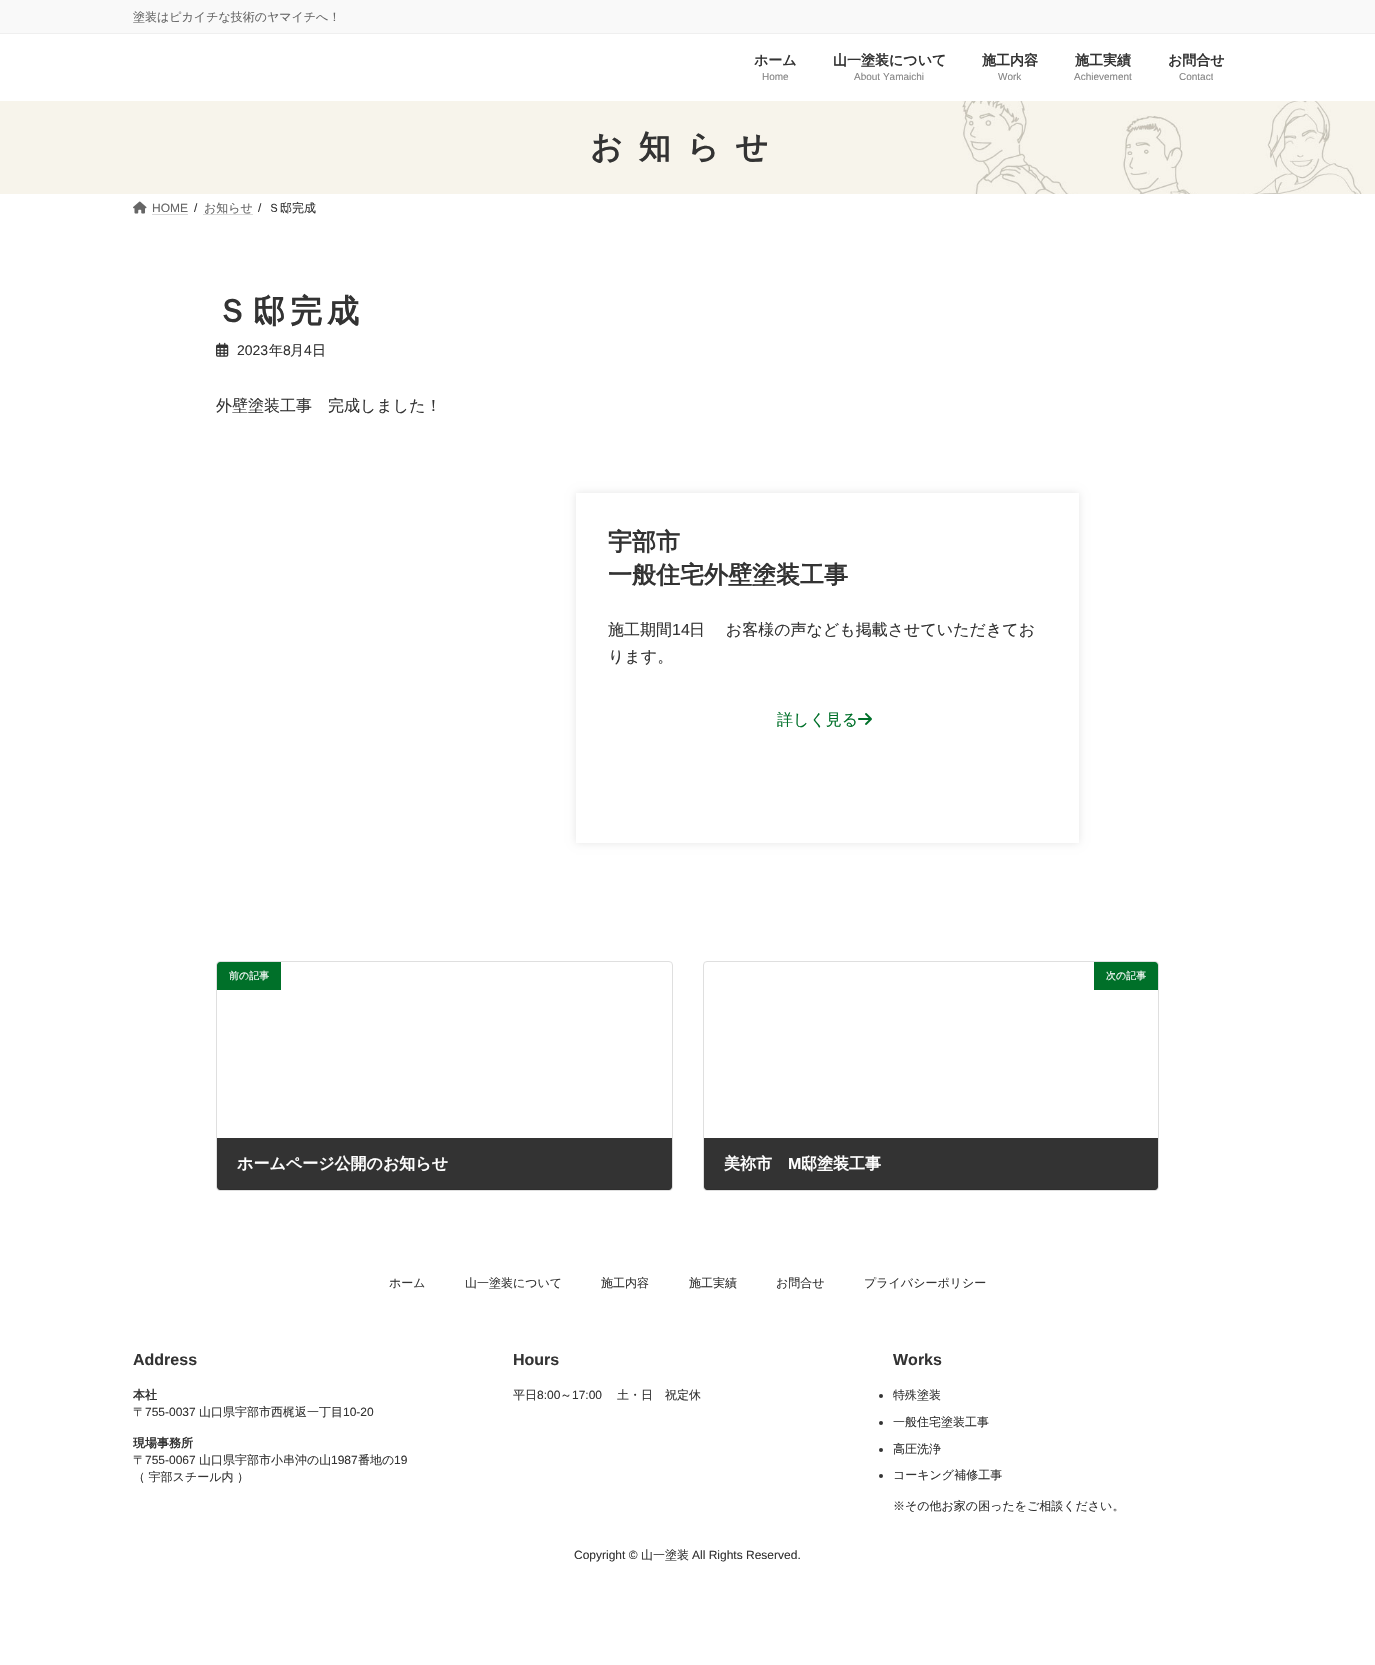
void draw(SkCanvas* c) {
SkPaint p;
p.setAntiAlias(true);
auto F=[&](const char* family, int weight, float size, bool italic = false){SkFontStyle style(weight, SkFontStyle::kNormal_Width,italic ? SkFontStyle::kItalic_Slant : SkFontStyle::kUpright_Slant);SkFont result(fontMgr->matchFamilyStyle(family, style), size);result.setSubpixel(true);return result;};
auto T=[&](const char* s, float x, float y, const SkFont& font){c->drawString(s, x, y, font, p);};
auto L=[&](const char* s, float x, float y, const SkFont& font, const SkPaint& ink, float letter, float word){std::vector<SkGlyphID> glyphs(font.countText(s, strlen(s), SkTextEncoding::kUTF8));std::vector<float> xs(glyphs.size());font.textToGlyphs(s, strlen(s), SkTextEncoding::kUTF8, glyphs);font.getXPos(glyphs, xs, x);float extra = 0;for (size_t i = 0; i < glyphs.size(); i++) {xs[i] += extra;extra += letter + word * (glyphs[i] == font.unicharToGlyph(' '));}c->drawTextBlob(SkTextBlob::MakeFromPosHGlyphs(glyphs, xs, y, font), 0, 0, ink);};
auto R=[&](float x, float y, float w, float h){c->drawRect(SkRect::MakeXYWH(x, y, w, h), p);};
auto I=[&](const char* path, float x, float y, float w, float h){auto image = SkImages::DeferredFromEncodedData(SkData::MakeFromFileName(path));c->drawImageRect(image, SkRect::MakeXYWH(x, y, w, h), SkSamplingOptions());};
auto P=[&](const char* data, bool evenOdd = false){SkPath result = *SkParsePath::FromSVGString(data);if (evenOdd) result.setFillType(SkPathFillType::kEvenOdd);return result;};
c->clear(0xffffffff);
p.setColor(0xfff9f9f9);
R(0,0,1375,33);
p.setColor(0xffefefef);
R(0,33,1375,1);
auto f1 = F("WenQuanYi Zen Hei",500,12);
p.setColor(0xff666666);
T("塗装はピカイチな技術のヤマイチへ！",133,21,f1);
auto f2 = F("WenQuanYi Zen Hei",700,14);
p.setColor(0xff333333);
T("ホーム",754,65,f2);
auto f3 = F("Liberation Sans",400,10);
p.setColor(0xff858585);
T("Home",762,80,f3);
p.setColor(0xff333333);
T("山一塗装について",833,65,f2);
p.setColor(0xff858585);
T("About Yamaichi",854,80,f3);
p.setColor(0xff333333);
T("施工内容",982,65,f2);
p.setColor(0xff858585);
T("Work",998,80,f3);
p.setColor(0xff333333);
T("施工実績",1075,65,f2);
p.setColor(0xff858585);
T("Achievement",1074,80,f3);
p.setColor(0xff333333);
T("お問合せ",1168,65,f2);
c->save();
c->clipRect(SkRect::MakeXYWH(1179,70,34,14));
p.setColor(0xff858585);
T("Contact",1179,80,f3);
c->restore();
I("1.png",0,101,1375,93);
auto f4 = F("WenQuanYi Zen Hei",700,32);
p.setColor(0xff333333);
L("お知らせ",590,158,f4,p,16,0);
I("2.png",133,201,14,13);
auto f5 = F("Liberation Sans",400,12);
p.setColor(0xff666666);
T("HOME",152,212,f5);
p.setStroke(true);
p.setStrokeWidth(1);
p.setColor(0xffb3b3b3);
p.setPathEffect(SkDashPathEffect::Make({{1,1}}, 0));
c->drawPath(P("M152.5 214.5h36"),p);
p.setPathEffect(nullptr);
p.setStroke(false);
p.setColor(0xff333333);
T("/",194,212,f5);
p.setColor(0xff666666);
T("お知らせ",204,212,f1);
p.setStroke(true);
p.setColor(0xffb3b3b3);
p.setPathEffect(SkDashPathEffect::Make({{1,1}}, 0));
c->drawPath(P("M203.5 214.5h49"),p);
p.setPathEffect(nullptr);
p.setStroke(false);
p.setColor(0xff333333);
T("/",258,212,f5);
T("Ｓ邸完成",268,212,f1);
L("Ｓ邸完成",216,322,f4,p,5,0);
I("3.png",216,342,13,15);
auto f6 = F("Liberation Sans",400,14);
T("2023",237,355,f6);
auto f7 = F("WenQuanYi Zen Hei",500,14);
T("年",269,355,f7);
T("8",283,355,f6);
T("月",290,355,f7);
T("4",304,355,f6);
T("日",312,355,f7);
auto f8 = F("WenQuanYi Zen Hei",500,16);
T("外壁塗装工事　完成しました！",216,411,f8);
c->save();
c->clipPath(P("M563 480h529v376h-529zm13 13h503v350h-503z",true),true);
p.setColor(0x1a000000);
p.setMaskFilter(SkMaskFilter::MakeBlur(kNormal_SkBlurStyle, 4));
c->drawRect(SkRect::MakeXYWH(576,493,503,350),p);
p.setMaskFilter(nullptr);
c->restore();
auto f9 = F("WenQuanYi Zen Hei",700,24);
p.setColor(0xff333333);
T("宇部市",608,550,f9);
T("一般住宅外壁塗装工事",608,583,f9);
T("施工期間",608,635,f8);
auto f10 = F("Liberation Sans",400,16);
T("14",672,635,f10);
T("日 　お客様の声なども掲載させていただきてお",689,635,f8);
T("ります。",608,662,f8);
p.setColor(0xff007029);
T("詳しく見る",777,725,f8);
I("4.png",858,713,14,12);
p.setStroke(true);
p.setColor(0xffdfdfdf);
c->drawRoundRect(SkRect::MakeXYWH(216.5,961.5,456,229),3.5,3.5,p);
c->save();
c->clipPath(P("M220 962h449c1.5 0 3 1.5 3 3v222c0 1.5-1.5 3-3 3h-449c-1.5 0-3-1.5-3-3v-222c0-1.5 1.5-3 3-3z"),true);
p.setStroke(false);
p.setColor(0xffe5e5e5);
R(217,1189,455,1);
c->restore();
p.setColor(0xff007029);
c->drawPath(P("M220 962h61v28h-64v-25c0-1.5 1.5-3 3-3z"),p);
auto f11 = F("WenQuanYi Zen Hei",500,10);
p.setColor(0xffffffff);
T("前の記事",229,979,f11);
p.setColor(0xcc000000);
c->drawPath(P("M217 1138h455v49c0 1.5-1.5 3-3 3h-449c-1.5 0-3-1.5-3-3z"),p);
auto f12 = F("WenQuanYi Zen Hei",700,16);
p.setColor(0xffffffff);
T("ホームページ公開のお知らせ",237,1169,f12);
p.setStroke(true);
p.setColor(0xffdfdfdf);
c->drawRoundRect(SkRect::MakeXYWH(703.5,961.5,455,229),3.5,3.5,p);
c->save();
c->clipPath(P("M707 962h448c1.5 0 3 1.5 3 3v222c0 1.5-1.5 3-3 3h-448c-1.5 0-3-1.5-3-3v-222c0-1.5 1.5-3 3-3z"),true);
p.setStroke(false);
p.setColor(0xffe5e5e5);
R(704,1189,454,1);
c->restore();
p.setColor(0xff007029);
c->drawPath(P("M1094 962h61c1.5 0 3 1.5 3 3v25h-64z"),p);
p.setColor(0xffffffff);
T("次の記事",1106,979,f11);
p.setColor(0xcc000000);
c->drawPath(P("M704 1138h454v49c0 1.5-1.5 3-3 3h-448c-1.5 0-3-1.5-3-3z"),p);
p.setColor(0xffffffff);
T("美祢市",724,1169,f12);
auto f13 = F("Liberation Sans",700,16);
T("M",788,1169,f13);
T("邸塗装工事",801,1169,f12);
p.setColor(0xff333333);
T("ホーム",389,1287,f1);
T("山一塗装について",465,1287,f1);
T("施工内容",601,1287,f1);
T("施工実績",689,1287,f1);
T("お問合せ",776,1287,f1);
T("プライバシーポリシー",864,1287,f1);
T("Address",133,1365,f13);
auto f14 = F("WenQuanYi Zen Hei",700,12);
T("本社",133,1399,f14);
T("〒",133,1416,f1);
T("755-0037",145,1416,f5);
T("山口県宇部市西梶返一丁目",199,1416,f1);
T("10-20",343,1416,f5);
T("現場事務所",133,1447,f14);
T("〒",133,1464,f1);
T("755-0067",145,1464,f5);
T("山口県宇部市小串沖の山",199,1464,f1);
T("1987",331,1464,f5);
T("番地の",358,1464,f1);
T("19",394,1464,f5);
T("（ 宇部スチール内 ）",133,1481,f1);
T("Hours",513,1365,f13);
T("平日",513,1399,f1);
T("8:00",537,1399,f5);
T("～",560,1399,f1);
T("17:00",572,1399,f5);
T("土・日　祝定休",617,1399,f1);
T("Works",893,1365,f13);
c->drawCircle(881,1396,2,p);
T("特殊塗装",893,1399,f1);
c->drawCircle(881,1423,2,p);
T("一般住宅塗装工事",893,1426,f1);
c->drawCircle(881,1450,2,p);
T("高圧洗浄",893,1453,f1);
c->drawCircle(881,1476,2,p);
T("コーキング補修工事",893,1479,f1);
T("※その他お家の困ったをご相談ください。",893,1510,f1);
T("Copyright ©",574,1559,f5);
T("山一塗装",641,1559,f1);
T("All Rights Reserved.",692,1559,f5);
}
